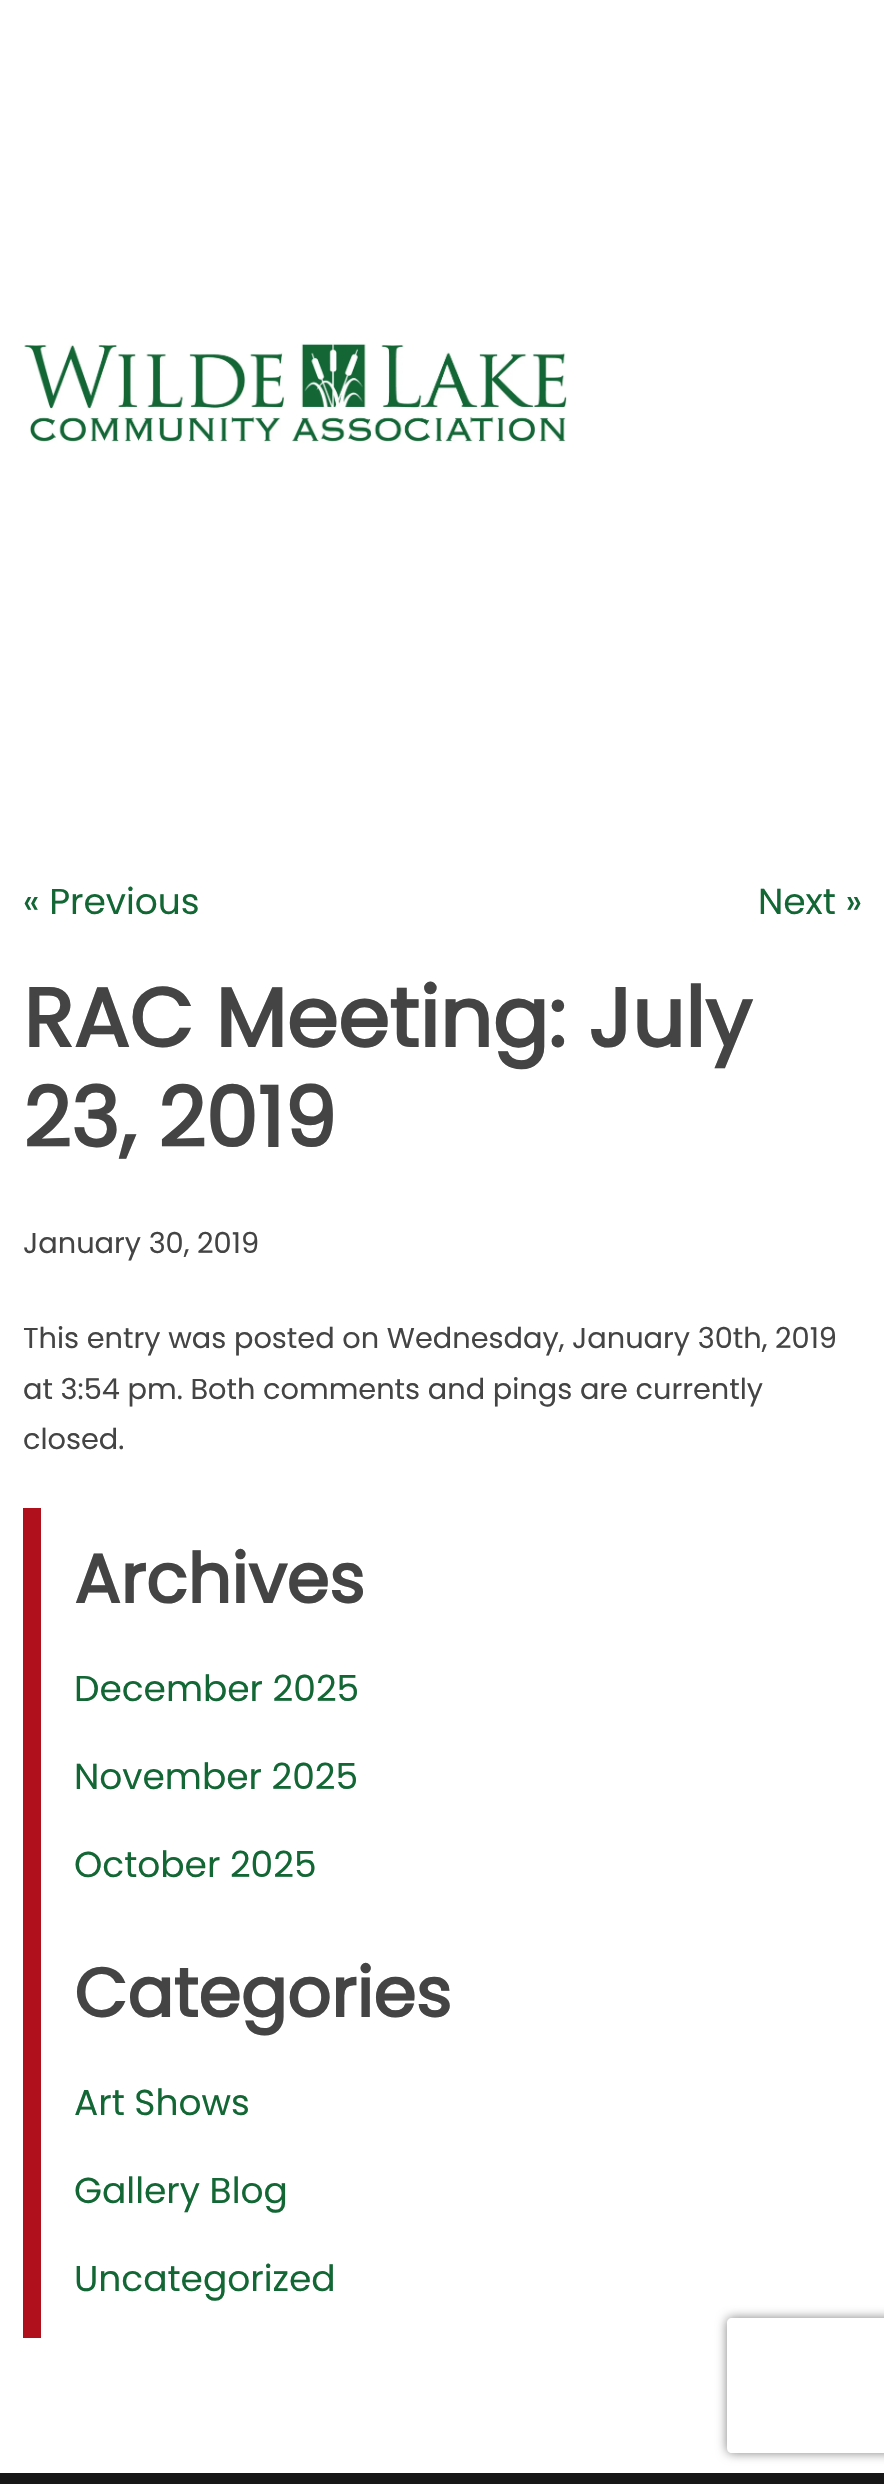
void draw(SkCanvas* c) {
SkPaint p;
p.setAntiAlias(true);
auto F=[&](const char* family, int weight, float size, bool italic = false){SkFontStyle style(weight, SkFontStyle::kNormal_Width,italic ? SkFontStyle::kItalic_Slant : SkFontStyle::kUpright_Slant);SkFont result(fontMgr->matchFamilyStyle(family, style), size);result.setSubpixel(true);return result;};
auto T=[&](const char* s, float x, float y, const SkFont& font){c->drawString(s, x, y, font, p);};
auto R=[&](float x, float y, float w, float h){c->drawRect(SkRect::MakeXYWH(x, y, w, h), p);};
auto I=[&](const char* path, float x, float y, float w, float h){auto image = SkImages::DeferredFromEncodedData(SkData::MakeFromFileName(path));c->drawImageRect(image, SkRect::MakeXYWH(x, y, w, h), SkSamplingOptions());};
auto P=[&](const char* data, bool evenOdd = false){SkPath result = *SkParsePath::FromSVGString(data);if (evenOdd) result.setFillType(SkPathFillType::kEvenOdd);return result;};
c->clear(0xffffffff);
I("1.png",24,343,543,100);
auto f1 = F("Poppins",400,36);
p.setColor(0xff136735);
T("« Previous",23,914,f1);
T("Next »",758,914,f1);
auto f2 = F("Poppins",700,82.75);
p.setColor(0xff444444);
T("RAC Meeting: July",23,1047,f2);
T("23, 2019",23,1147,f2);
auto f3 = F("Poppins",400,28.8);
T("January 30, 2019",23,1253,f3);
T("This entry was posted on Wednesday, January 30th, 2019",23,1348,f3);
T("at 3:54 pm. Both comments and pings are currently",23,1399,f3);
T("closed.",23,1449,f3);
p.setColor(0xffb0101b);
R(23,1508,18,830);
auto f4 = F("Poppins",700,68.5);
p.setColor(0xff444444);
T("Archives",74,1603,f4);
p.setColor(0xff136735);
T("December 2025",74,1701,f1);
T("November 2025",74,1789,f1);
T("October 2025",74,1877,f1);
p.setColor(0xff444444);
T("Categories",74,2017,f4);
p.setColor(0xff136735);
T("Art Shows",74,2115,f1);
T("Gallery Blog",74,2203,f1);
T("Uncategorized",74,2291,f1);
c->save();
c->clipPath(P("M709 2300h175v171h-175zm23 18h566c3 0 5 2 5 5v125c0 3-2 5-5 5h-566c-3 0-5-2-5-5v-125c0-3 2-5 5-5z",true),true);
p.setColor(0xff808080);
p.setMaskFilter(SkMaskFilter::MakeBlur(kNormal_SkBlurStyle, 5.5));
c->drawRoundRect(SkRect::MakeXYWH(727,2318,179,135),5,5,p);
p.setMaskFilter(nullptr);
c->restore();
p.setColor(0xff171717);
R(0,2473,884,11);
}
